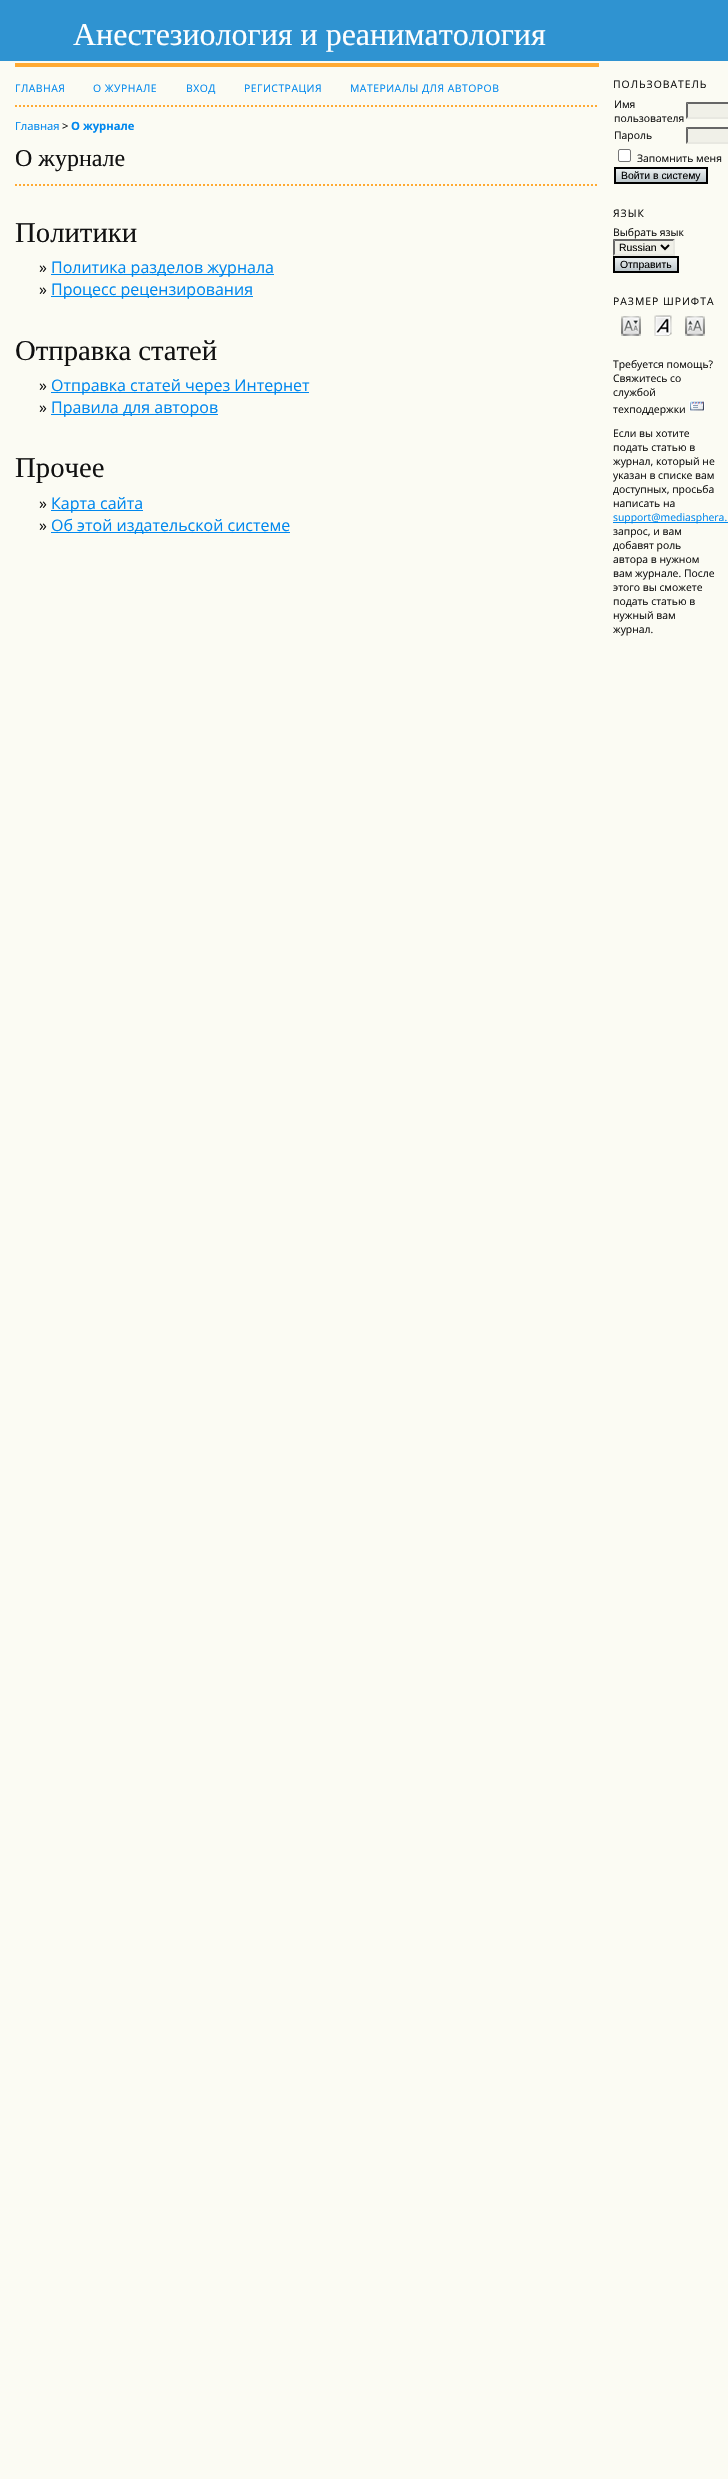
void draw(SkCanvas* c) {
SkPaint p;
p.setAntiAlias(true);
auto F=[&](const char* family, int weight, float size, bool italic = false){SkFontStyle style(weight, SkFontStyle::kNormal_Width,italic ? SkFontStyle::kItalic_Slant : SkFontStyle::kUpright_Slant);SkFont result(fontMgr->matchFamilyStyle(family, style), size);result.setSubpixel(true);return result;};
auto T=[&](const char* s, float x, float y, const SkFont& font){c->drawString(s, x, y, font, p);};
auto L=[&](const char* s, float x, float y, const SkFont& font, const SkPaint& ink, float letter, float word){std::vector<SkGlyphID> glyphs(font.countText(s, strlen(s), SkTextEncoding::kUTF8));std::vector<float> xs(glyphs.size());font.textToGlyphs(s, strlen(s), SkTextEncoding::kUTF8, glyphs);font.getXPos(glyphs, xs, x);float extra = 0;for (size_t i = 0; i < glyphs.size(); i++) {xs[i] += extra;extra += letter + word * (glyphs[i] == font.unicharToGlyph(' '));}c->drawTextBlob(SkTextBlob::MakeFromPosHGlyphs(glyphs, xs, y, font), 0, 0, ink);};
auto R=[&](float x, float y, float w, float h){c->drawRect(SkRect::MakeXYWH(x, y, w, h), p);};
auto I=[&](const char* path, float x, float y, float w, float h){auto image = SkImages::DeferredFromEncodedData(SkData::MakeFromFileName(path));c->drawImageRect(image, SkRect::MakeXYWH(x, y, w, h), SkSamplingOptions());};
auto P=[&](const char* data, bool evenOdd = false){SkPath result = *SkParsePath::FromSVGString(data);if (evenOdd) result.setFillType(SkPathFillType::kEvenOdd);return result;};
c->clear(0xfffbfbf3);
p.setColor(0xff2f93d1);
R(0,0,728,61);
auto f1 = F("Liberation Serif",400,32);
p.setColor(0xffffffff);
T("Анестезиология и реаниматология",73,45,f1);
p.setColor(0xffffaa33);
R(15,63,584,4);
p.setStroke(true);
p.setStrokeWidth(2);
p.setPathEffect(SkDashPathEffect::Make({{2,2}}, 0));
c->drawPath(P("M15 106h584"),p);
p.setPathEffect(nullptr);
auto f2 = F("Open Sans",400,10.4);
p.setStroke(false);
p.setColor(0xff0088ee);
L("ГЛАВНАЯ",15,92,f2,p,.5,0);
L("О ЖУРНАЛЕ",93,92,f2,p,.5,0);
L("ВХОД",186,92,f2,p,.5,0);
L("РЕГИСТРАЦИЯ",244,92,f2,p,.5,0);
L("МАТЕРИАЛЫ ДЛЯ АВТОРОВ",350,92,f2,p,.5,0);
auto f3 = F("Open Sans",400,11.25);
T("Главная",15,130,f3);
p.setColor(0xff111111);
T(">",62,130,f3);
auto f4 = F("Open Sans",700,11.25);
p.setColor(0xff0088ee);
T("О журнале",71,130,f4);
auto f5 = F("Liberation Serif",400,24);
p.setColor(0xff111111);
T("О журнале",15,166,f5);
p.setStroke(true);
p.setColor(0xffffaa33);
p.setPathEffect(SkDashPathEffect::Make({{2,2}}, 0));
c->drawPath(P("M15 185h584"),p);
p.setPathEffect(nullptr);
auto f6 = F("Liberation Serif",400,28.75);
p.setStroke(false);
p.setColor(0xff111111);
T("Политики",15,242,f6);
auto f7 = F("Open Sans",400,16);
T("»",39,273,f7);
p.setColor(0xff0088ee);
R(51,274,223,1);
T("Политика разделов журнала",51,273,f7);
p.setColor(0xff111111);
T("»",39,295,f7);
p.setColor(0xff0088ee);
R(51,296,202,1);
T("Процесс рецензирования",51,295,f7);
p.setColor(0xff111111);
T("Отправка статей",15,360,f6);
T("»",39,391,f7);
p.setColor(0xff0088ee);
R(51,392,258,1);
T("Отправка статей через Интернет",51,391,f7);
p.setColor(0xff111111);
T("»",39,413,f7);
p.setColor(0xff0088ee);
R(51,414,167,1);
T("Правила для авторов",51,413,f7);
p.setColor(0xff111111);
T("Прочее",15,477,f6);
T("»",39,509,f7);
p.setColor(0xff0088ee);
R(51,510,92,1);
T("Карта сайта",51,509,f7);
p.setColor(0xff111111);
T("»",39,531,f7);
p.setColor(0xff0088ee);
R(51,532,239,1);
T("Об этой издательской системе",51,531,f7);
p.setColor(0xff111111);
L("ПОЛЬЗОВАТЕЛЬ",613,88,f2,p,1,0);
T("Имя",614,108,f2);
T("пользователя",614,122,f2);
p.setColor(0xfff0f0e8);
R(686,102,42,17);
p.setColor(0xff666666);
c->drawPath(P("M686 102h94l-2 2h-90z"),p);
p.setColor(0xffe8e8e1);
c->drawPath(P("M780 119h-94l2-2h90z"),p);
p.setColor(0xff666666);
c->drawPath(P("M686 119v-17l2 2v13z"),p);
p.setColor(0xff111111);
T("Пароль",614,139,f2);
p.setColor(0xfff0f0e8);
R(686,127,42,17);
p.setColor(0xff666666);
c->drawPath(P("M686 127h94l-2 2h-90z"),p);
p.setColor(0xffe8e8e1);
c->drawPath(P("M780 144h-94l2-2h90z"),p);
p.setColor(0xff666666);
c->drawPath(P("M686 144v-17l2 2v13z"),p);
p.setColor(0xffffffff);
c->drawRoundRect(SkRect::MakeXYWH(618.5,149.5,12,12),1.5,1.5,p);
p.setStroke(true);
p.setStrokeWidth(1);
p.setColor(0xff767676);
c->drawRoundRect(SkRect::MakeXYWH(618.5,149.5,12,12),1.5,1.5,p);
p.setStroke(false);
p.setColor(0xff111111);
T("Запомнить меня",637,162,f2);
{
const SkColor colors[] = {0xffeaeeef,0xffbdc7cc};
const float stops[] = {0,1};
const SkPoint ends[] = {{661,169}, {661,182}};
p.setShader(SkGradientShader::MakeLinear(ends, colors, stops, 2, SkTileMode::kClamp));
p.setAlpha(255);
}
R(616,169,90,13);
p.setStroke(true);
p.setStrokeWidth(2);
p.setShader(nullptr);
p.setColor(0xff000000);
c->drawRect(SkRect::MakeXYWH(615,168,92,15),p);
auto f8 = F("Liberation Sans",400,10.4);
p.setStroke(false);
T("Войти в систему",621,179,f8);
p.setColor(0xff111111);
L("ЯЗЫК",613,217,f2,p,1,0);
T("Выбрать язык",613,236,f2);
p.setColor(0xfff0f0e8);
R(613,239,62,17);
p.setColor(0xff666666);
c->drawPath(P("M613 239h62l-2 2h-58z"),p);
p.setColor(0xffe8e8e1);
c->drawPath(P("M675 239v17l-2-2v-13z"),p);
c->drawPath(P("M675 256h-62l2-2h58z"),p);
p.setColor(0xff666666);
c->drawPath(P("M613 256v-17l2 2v13z"),p);
p.setStroke(true);
p.setColor(0xff000000);
c->drawPath(P("M661 245l4 4l4-4"),p);
p.setStroke(false);
T("Russian",619,251,f8);
{
const SkColor colors[] = {0xffeaeeef,0xffbdc7cc};
const float stops[] = {0,1};
const SkPoint ends[] = {{646,258}, {646,271}};
p.setShader(SkGradientShader::MakeLinear(ends, colors, stops, 2, SkTileMode::kClamp));
p.setAlpha(255);
}
R(615,258,62,13);
p.setStroke(true);
p.setShader(nullptr);
p.setColor(0xff000000);
c->drawRect(SkRect::MakeXYWH(614,257,64,15),p);
p.setStroke(false);
T("Отправить",620,268,f8);
p.setColor(0xff111111);
L("РАЗМЕР ШРИФТА",613,305,f2,p,1,0);
I("1.png",621,316,20,20);
I("2.png",654,315,18,21);
I("3.png",685,316,20,20);
T("Требуется помощь?",613,368,f2);
T("Свяжитесь со",613,382,f2);
T("службой",613,396,f2);
T("техподдержки",613,413,f2);
I("4.png",689,401,16,10);
T("Если вы хотите",613,437,f2);
T("подать статью в",613,451,f2);
T("журнал, который не",613,465,f2);
T("указан в списке вам",613,479,f2);
T("доступных, просьба",613,493,f2);
T("написать на",613,507,f2);
p.setColor(0xff0088ee);
R(613,522,115,1);
T("support@mediasphera.",613,521,f2);
p.setColor(0xff111111);
T("запрос, и вам",613,535,f2);
T("добавят роль",613,549,f2);
T("автора в нужном",613,563,f2);
T("вам журнале. После",613,577,f2);
T("этого вы сможете",613,591,f2);
T("подать статью в",613,605,f2);
T("нужный вам",613,619,f2);
T("журнал.",613,633,f2);
}
